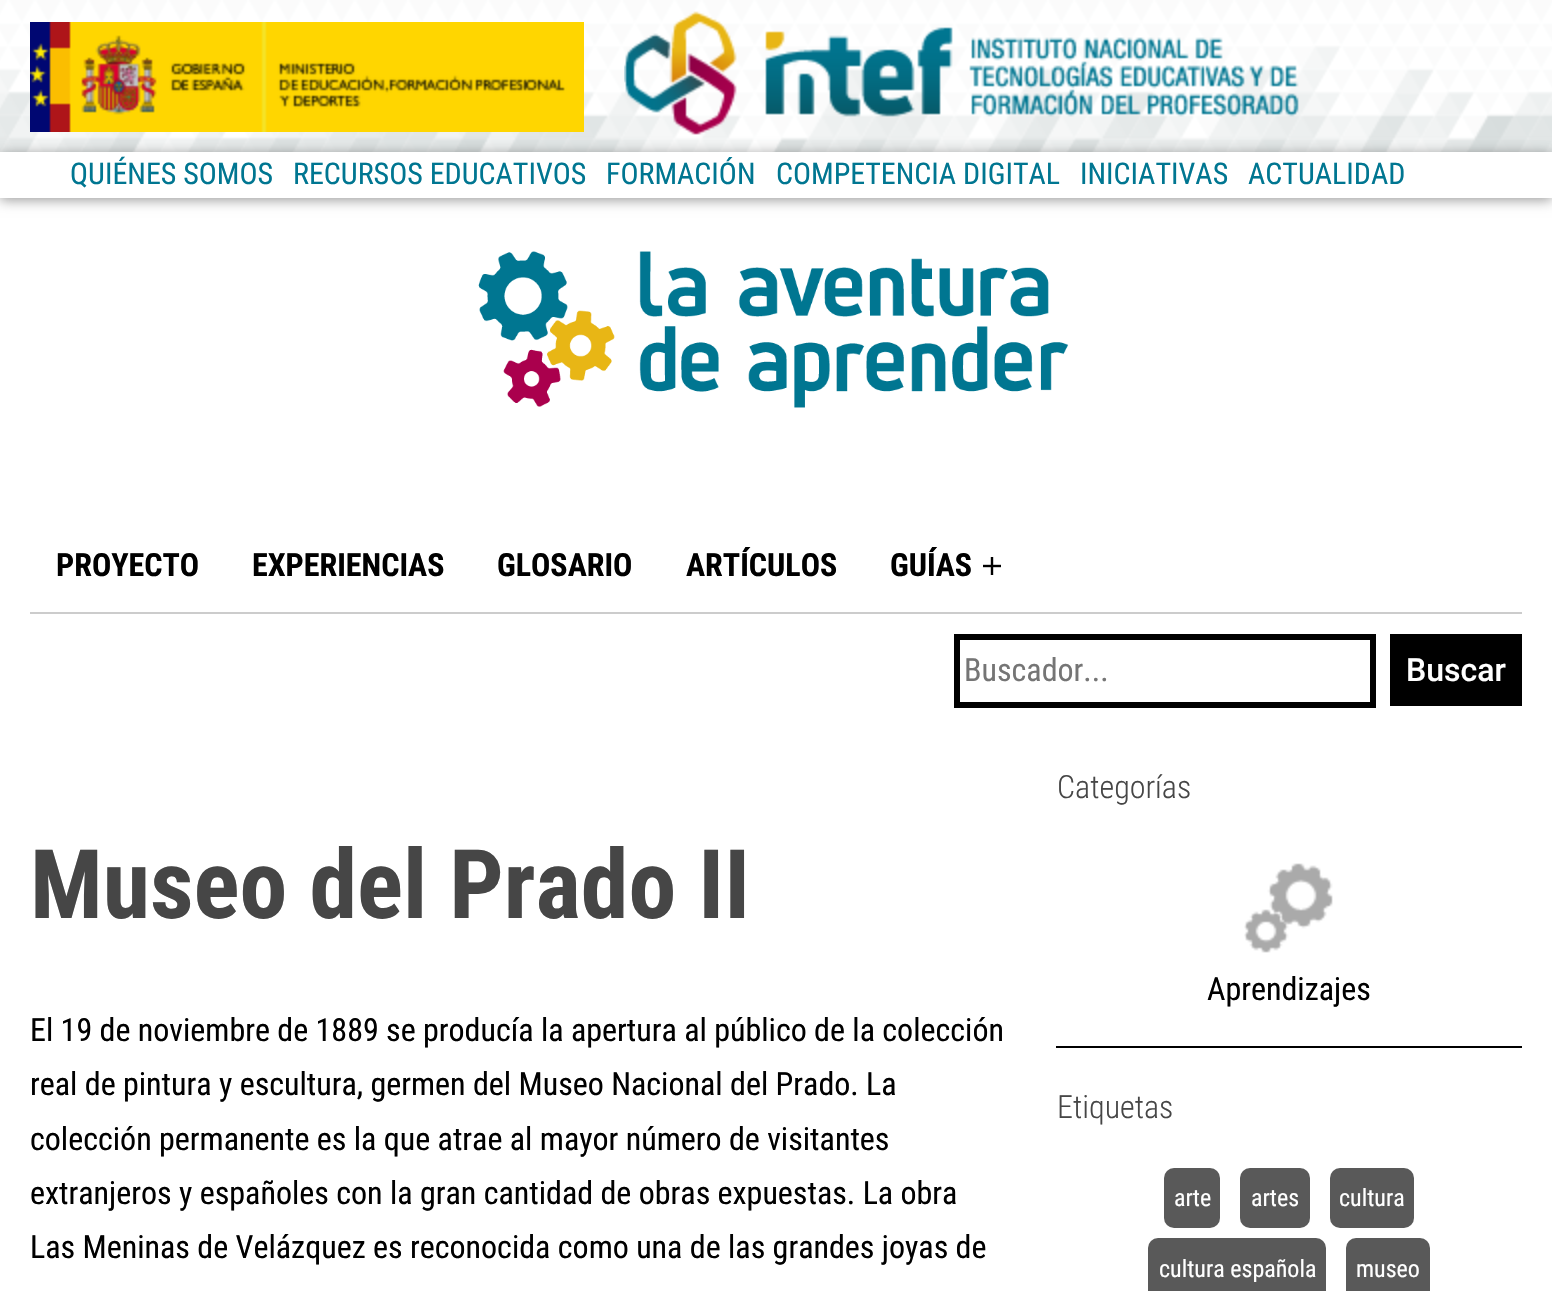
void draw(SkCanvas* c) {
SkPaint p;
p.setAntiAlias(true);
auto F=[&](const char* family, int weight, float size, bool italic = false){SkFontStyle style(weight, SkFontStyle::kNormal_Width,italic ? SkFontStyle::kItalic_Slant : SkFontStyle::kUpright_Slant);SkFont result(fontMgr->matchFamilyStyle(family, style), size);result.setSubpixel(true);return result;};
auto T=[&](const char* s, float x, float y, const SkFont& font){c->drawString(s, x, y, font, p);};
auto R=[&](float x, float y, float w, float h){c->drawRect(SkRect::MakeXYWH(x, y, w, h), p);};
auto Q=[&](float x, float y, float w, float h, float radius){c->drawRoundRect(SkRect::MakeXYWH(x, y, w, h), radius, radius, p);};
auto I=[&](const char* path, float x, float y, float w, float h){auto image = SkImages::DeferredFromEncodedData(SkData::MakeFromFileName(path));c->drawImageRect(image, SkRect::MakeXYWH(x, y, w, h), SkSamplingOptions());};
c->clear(0xffffffff);
p.setColor(0xffcfd6d6);
R(0,0,1552,152);
I("1.png",0,0,1552,152);
I("2.png",30,22,554,110);
I("3.png",624,11,675,124);
p.setColor(0x66000000);
p.setMaskFilter(SkMaskFilter::MakeBlur(kNormal_SkBlurStyle, 6));
c->drawRect(SkRect::MakeXYWH(0,154,1552,46),p);
p.setMaskFilter(nullptr);
p.setColor(0xffffffff);
R(0,152,1552,46);
auto f1 = F("Roboto Condensed",400,30);
p.setColor(0xff007691);
T("QUIÉNES SOMOS",70,184,f1);
T("RECURSOS EDUCATIVOS",293,184,f1);
T("FORMACIÓN",606,184,f1);
T("COMPETENCIA DIGITAL",776,184,f1);
T("INICIATIVAS",1080,184,f1);
T("ACTUALIDAD",1248,184,f1);
I("4.png",478,251,591,157);
p.setColor(0xffcccccc);
R(30,612,1492,2);
auto f2 = F("Roboto Condensed",700,32);
p.setColor(0xff000000);
T("PROYECTO",56,576,f2);
T("EXPERIENCIAS",252,576,f2);
T("GLOSARIO",497,576,f2);
T("ARTÍCULOS",686,576,f2);
T("GUÍAS",890,576,f2);
I("5.png",983,557,18,18);
p.setStroke(true);
p.setStrokeWidth(6);
c->drawRect(SkRect::MakeXYWH(957,637,416,68),p);
auto f3 = F("Roboto Condensed",400,32);
p.setStroke(false);
p.setColor(0xff757575);
T("Buscador...",964,681,f3);
p.setColor(0xff000000);
R(1390,634,132,72);
auto f4 = F("Roboto",500,32);
p.setColor(0xffffffff);
T("Buscar",1406,681,f4);
auto f5 = F("Roboto Condensed",700,96);
p.setColor(0xff464646);
T("Museo del Prado II",30,918,f5);
p.setColor(0xff000000);
T("El 19 de noviembre de 1889 se producía la apertura al público de la colección",30,1041,f3);
T("real de pintura y escultura, germen del Museo Nacional del Prado. La",30,1095,f3);
T("colección permanente es la que atrae al mayor número de visitantes",30,1150,f3);
T("extranjeros y españoles con la gran cantidad de obras expuestas. La obra",30,1204,f3);
T("Las Meninas de Velázquez es reconocida como una de las grandes joyas de",30,1258,f3);
R(1056,1046,466,2);
auto f6 = F("Roboto Condensed",300,32);
p.setColor(0xff464646);
T("Categorías",1057,798,f6);
I("6.png",1244,863,89,90);
p.setColor(0xff000000);
T("Aprendizajes",1207,1000,f3);
p.setColor(0xff464646);
T("Etiquetas",1057,1118,f6);
p.setColor(0xff595959);
Q(1164,1168,56,60,10);
auto f7 = F("Roboto Condensed",400,24);
p.setColor(0xffffffff);
T("arte",1174,1206,f7);
p.setColor(0xff595959);
Q(1240,1168,70,60,10);
p.setColor(0xffffffff);
T("artes",1251,1206,f7);
p.setColor(0xff595959);
Q(1330,1168,84,60,10);
p.setColor(0xffffffff);
T("cultura",1339,1206,f7);
p.setColor(0xff595959);
Q(1148,1238,178,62,10);
p.setColor(0xffffffff);
T("cultura española",1159,1277,f7);
p.setColor(0xff595959);
Q(1346,1238,84,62,10);
p.setColor(0xffffffff);
T("museo",1356,1277,f7);
}
